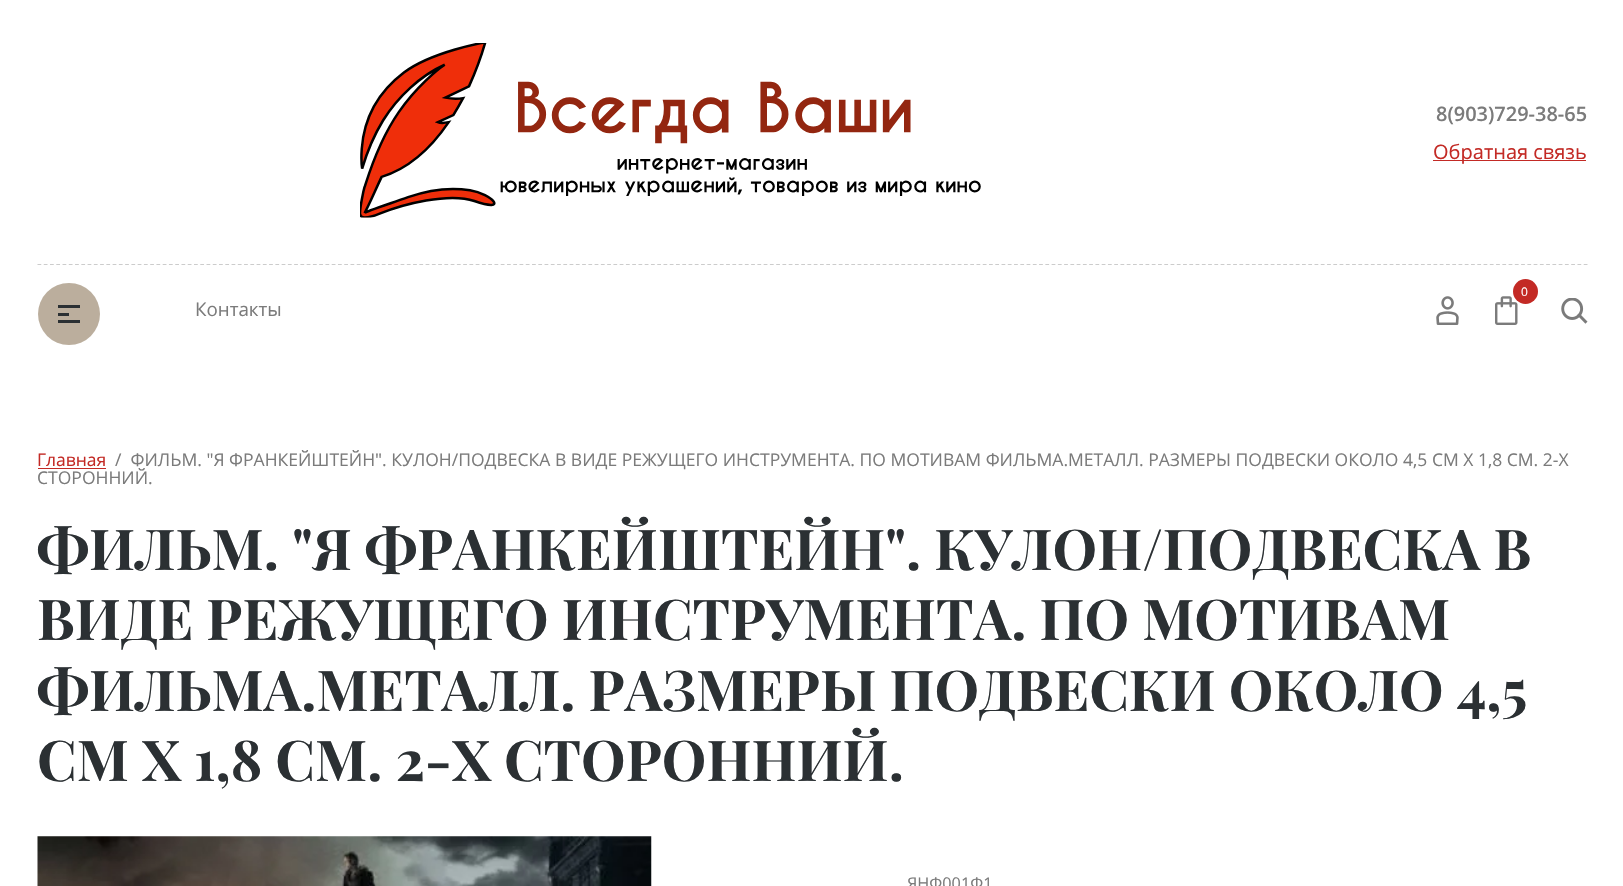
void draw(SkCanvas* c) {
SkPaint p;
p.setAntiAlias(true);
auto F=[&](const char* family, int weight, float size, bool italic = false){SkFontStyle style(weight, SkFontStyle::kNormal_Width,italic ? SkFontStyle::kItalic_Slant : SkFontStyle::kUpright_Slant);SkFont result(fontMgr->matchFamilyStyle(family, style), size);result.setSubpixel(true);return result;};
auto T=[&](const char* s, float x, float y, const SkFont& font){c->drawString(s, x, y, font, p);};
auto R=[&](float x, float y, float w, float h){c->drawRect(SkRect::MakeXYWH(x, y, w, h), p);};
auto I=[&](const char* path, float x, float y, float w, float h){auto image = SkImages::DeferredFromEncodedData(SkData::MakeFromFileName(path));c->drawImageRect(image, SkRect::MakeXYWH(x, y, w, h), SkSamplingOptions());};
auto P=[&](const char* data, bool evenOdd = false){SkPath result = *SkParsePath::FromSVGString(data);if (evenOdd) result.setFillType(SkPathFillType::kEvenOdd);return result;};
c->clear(0xffffffff);
p.setStroke(true);
p.setStrokeWidth(1.2);
p.setColor(0xffcccccc);
p.setPathEffect(SkDashPathEffect::Make({{3.75f,2.51f}}, 0));
c->drawPath(P("M37.5 264.5h1550"),p);
p.setPathEffect(nullptr);
I("1.png",360,43,621,175);
auto f1 = F("Open Sans",600,20);
p.setStroke(false);
p.setColor(0xff7b7b7b);
T("8(903)729-38-65",1436,121,f1);
p.setColor(0xffc32a25);
R(1433,160,153,1);
auto f2 = F("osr",400,20);
T("Обратная связь",1433,159,f2);
p.setColor(0xffbbae9d);
c->drawCircle(69,314,31,p);
p.setColor(0xff2b3033);
R(58,305,22,3);
R(58,313,11,3);
R(58,320,22,3);
I("2.png",1495,296,23,29);
p.setColor(0xffc32a25);
c->drawCircle(1525.5,291.5,12.5,p);
auto f3 = F("osr",400,12);
p.setColor(0xffffffff);
T("0",1521,296,f3);
I("3.png",1436,296,23,29);
I("4.png",1561,298,27,26);
auto f4 = F("osr",400,18.75);
p.setColor(0xff7b7b7b);
T("Контакты",195,316,f4);
auto f5 = F("osr",400,17.5);
p.setColor(0xffc32a25);
T("Главная",37,466,f5);
R(38,468,68,1);
p.setColor(0xff7b7b7b);
T("/  ФИЛЬМ. \"Я ФРАНКЕЙШТЕЙН\". КУЛОН/ПОДВЕСКА В ВИДЕ РЕЖУЩЕГО ИНСТРУМЕНТА. ПО МОТИВАМ ФИЛЬМА.МЕТАЛЛ. РАЗМЕРЫ ПОДВЕСКИ ОКОЛО 4,5 СМ Х 1,8 СМ. 2-Х",115,466,f5);
T("СТОРОННИЙ.",37,484,f5);
auto f6 = F("Playfair Display",700,56.25);
p.setColor(0xff2b3033);
T("ФИЛЬМ. \"Я ФРАНКЕЙШТЕЙН\". КУЛОН/ПОДВЕСКА В",37,570,f6);
T("ВИДЕ РЕЖУЩЕГО ИНСТРУМЕНТА. ПО МОТИВАМ",37,640,f6);
T("ФИЛЬМА.МЕТАЛЛ. РАЗМЕРЫ ПОДВЕСКИ ОКОЛО 4,5",37,711,f6);
T("СМ Х 1,8 СМ. 2-Х СТОРОННИЙ.",37,781,f6);
I("5.png",37,836,615,50);
auto f7 = F("osr",400,16.25);
p.setColor(0xff7b7b7b);
T("ЯНФ001Ф1",907,889,f7);
}
